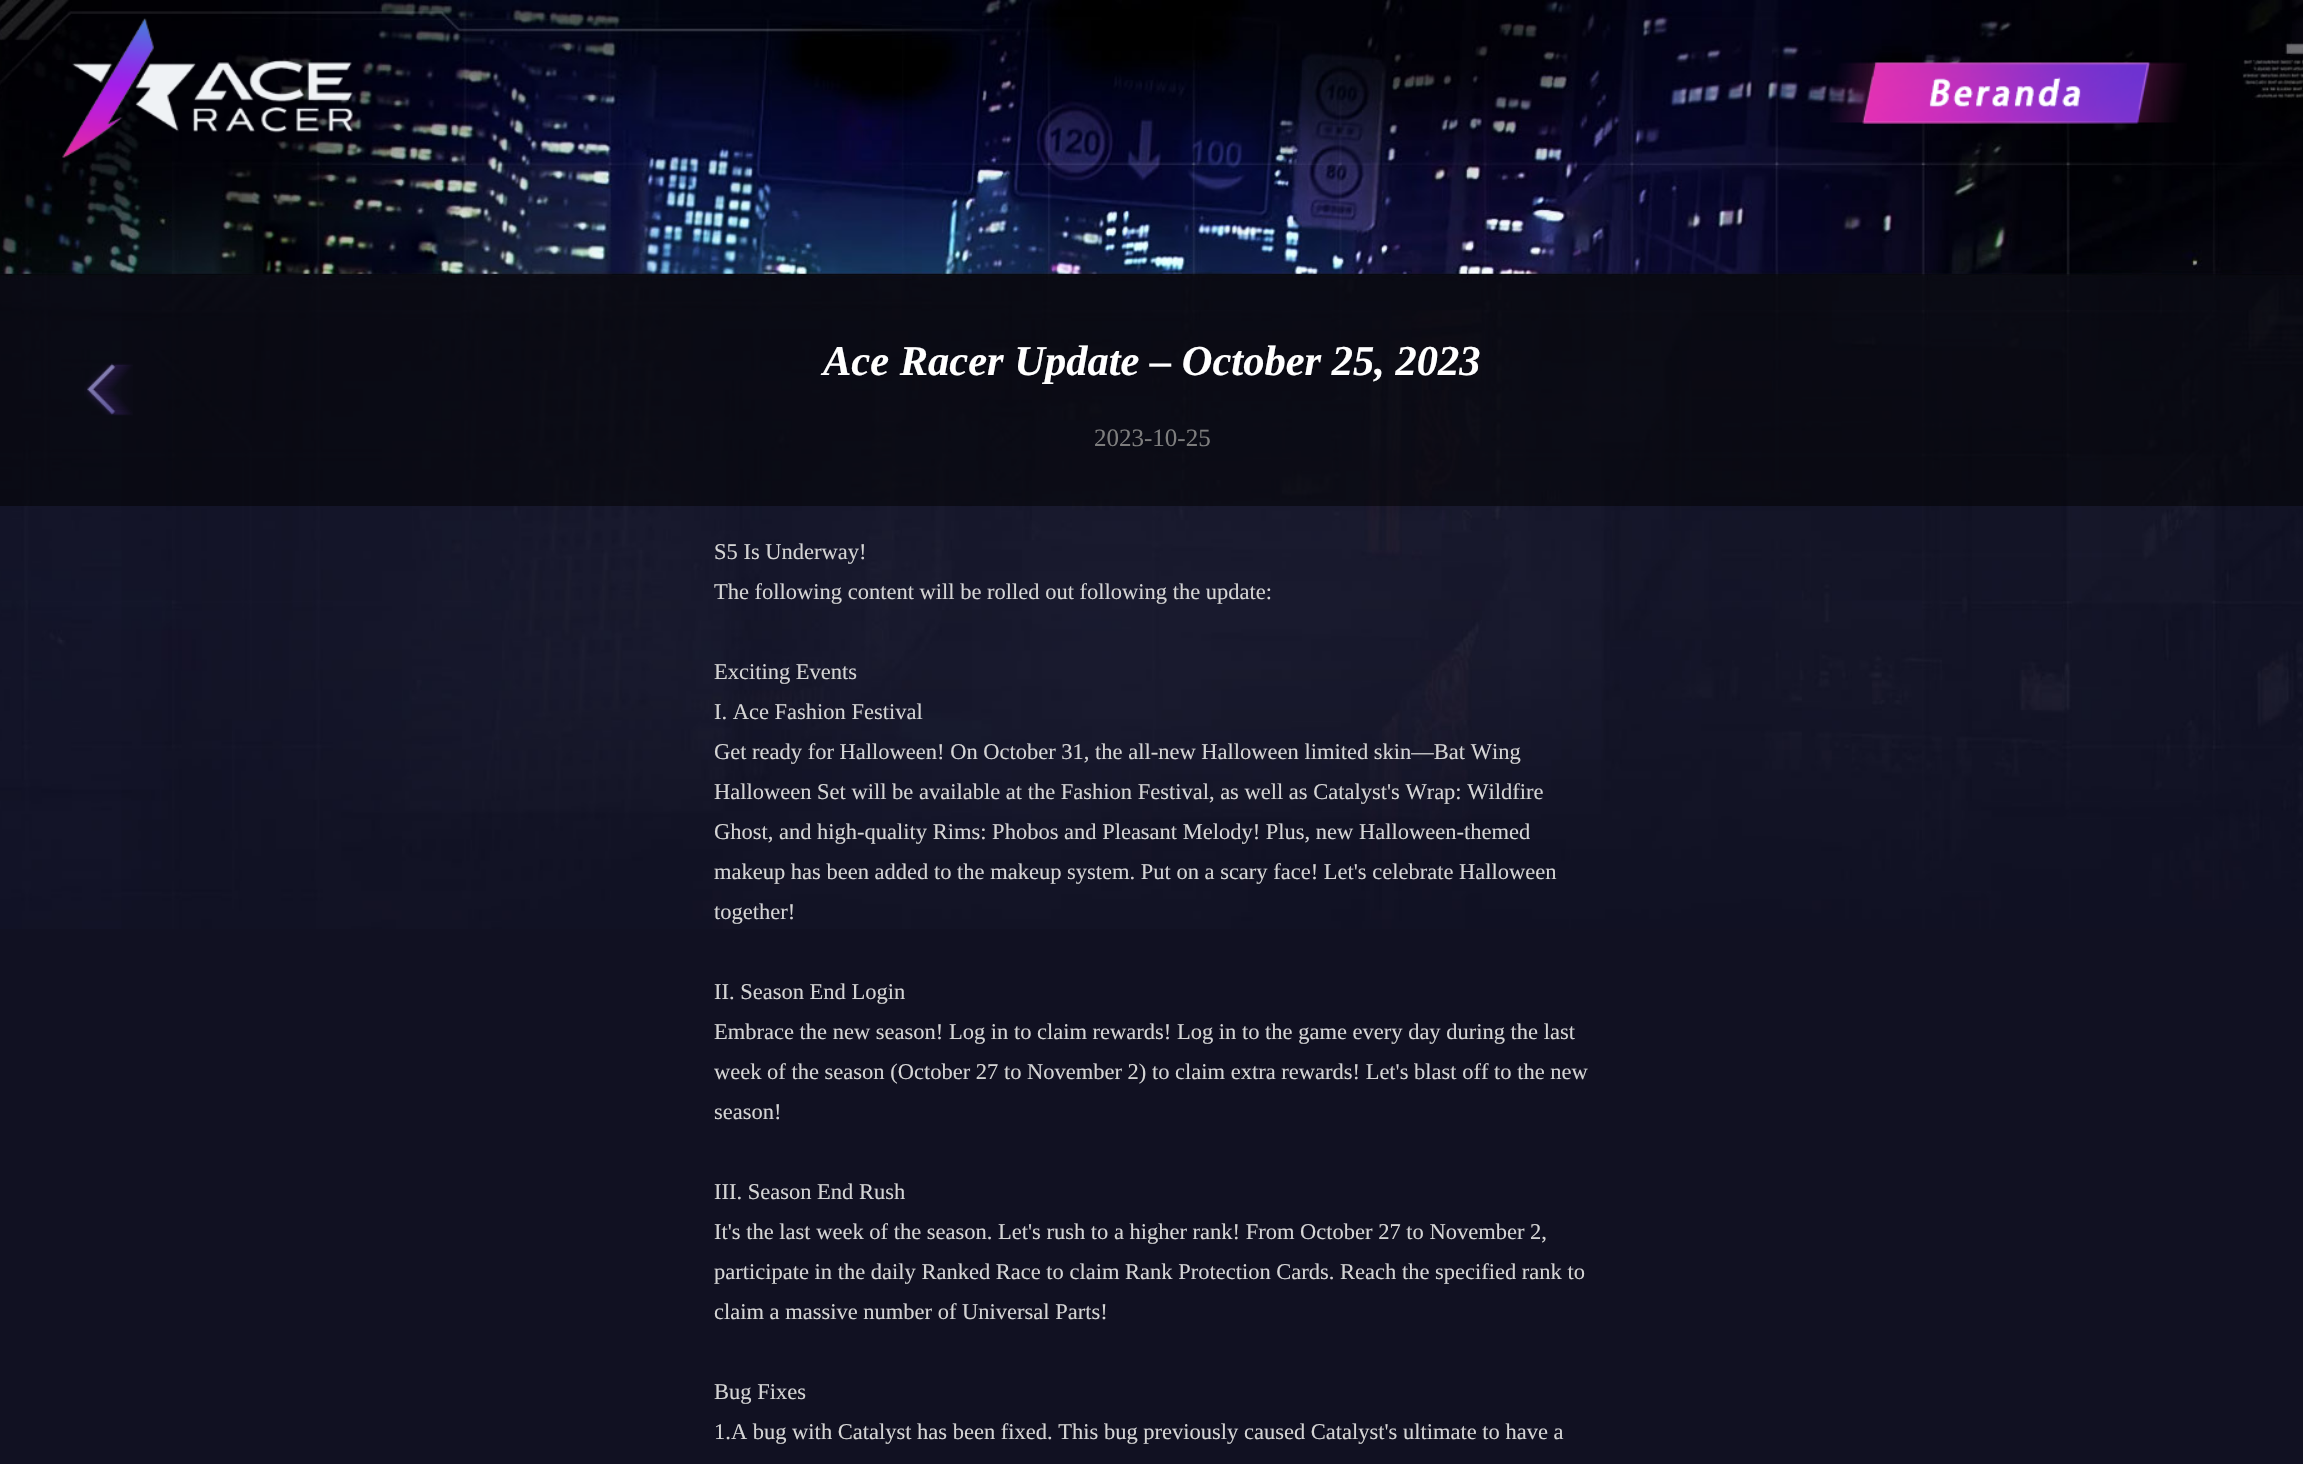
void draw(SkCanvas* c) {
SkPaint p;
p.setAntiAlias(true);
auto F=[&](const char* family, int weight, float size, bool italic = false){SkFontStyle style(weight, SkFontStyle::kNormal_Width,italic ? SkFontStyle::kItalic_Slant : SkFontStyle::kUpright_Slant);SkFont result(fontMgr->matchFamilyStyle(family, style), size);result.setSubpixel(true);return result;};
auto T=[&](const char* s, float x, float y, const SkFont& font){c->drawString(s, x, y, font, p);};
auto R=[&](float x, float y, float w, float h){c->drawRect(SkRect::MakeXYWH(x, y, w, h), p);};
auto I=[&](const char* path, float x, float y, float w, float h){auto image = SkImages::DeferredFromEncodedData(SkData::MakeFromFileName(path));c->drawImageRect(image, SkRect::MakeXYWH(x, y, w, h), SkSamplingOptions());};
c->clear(0xff111122);
I("1.png",0,0,2303,929);
I("2.png",62,18,291,140);
I("3.png",1830,62,357,62);
p.setColor(0x80000000);
R(0,274,2303,232);
I("4.png",84,363,49,53);
auto f1 = F("Liberation Serif",700,42.5,true);
p.setColor(0xffffffff);
T("Ace Racer Update – October 25, 2023",823,375,f1);
auto f2 = F("Liberation Serif",400,25);
p.setColor(0xff7d7d7d);
T("2023-10-25",1094,446,f2);
auto f3 = F("Liberation Serif",400,22.5);
p.setColor(0xffd4d4d4);
T("S5 Is Underway!",714,559,f3);
T("The following content will be rolled out following the update:",714,599,f3);
T("Exciting Events",714,679,f3);
T("I. Ace Fashion Festival",714,719,f3);
T("Get ready for Halloween! On October 31, the all-new Halloween limited skin—Bat Wing",714,759,f3);
T("Halloween Set will be available at the Fashion Festival, as well as Catalyst's Wrap: Wildfire",714,799,f3);
T("Ghost, and high-quality Rims: Phobos and Pleasant Melody! Plus, new Halloween-themed",714,839,f3);
T("makeup has been added to the makeup system. Put on a scary face! Let's celebrate Halloween",714,879,f3);
T("together!",714,919,f3);
T("II. Season End Login",714,999,f3);
T("Embrace the new season! Log in to claim rewards! Log in to the game every day during the last",714,1039,f3);
T("week of the season (October 27 to November 2) to claim extra rewards! Let's blast off to the new",714,1079,f3);
T("season!",714,1119,f3);
T("III. Season End Rush",714,1199,f3);
T("It's the last week of the season. Let's rush to a higher rank! From October 27 to November 2,",714,1239,f3);
T("participate in the daily Ranked Race to claim Rank Protection Cards. Reach the specified rank to",714,1279,f3);
T("claim a massive number of Universal Parts!",714,1319,f3);
T("Bug Fixes",714,1399,f3);
T("1.A bug with Catalyst has been fixed. This bug previously caused Catalyst's ultimate to have a",714,1439,f3);
}
